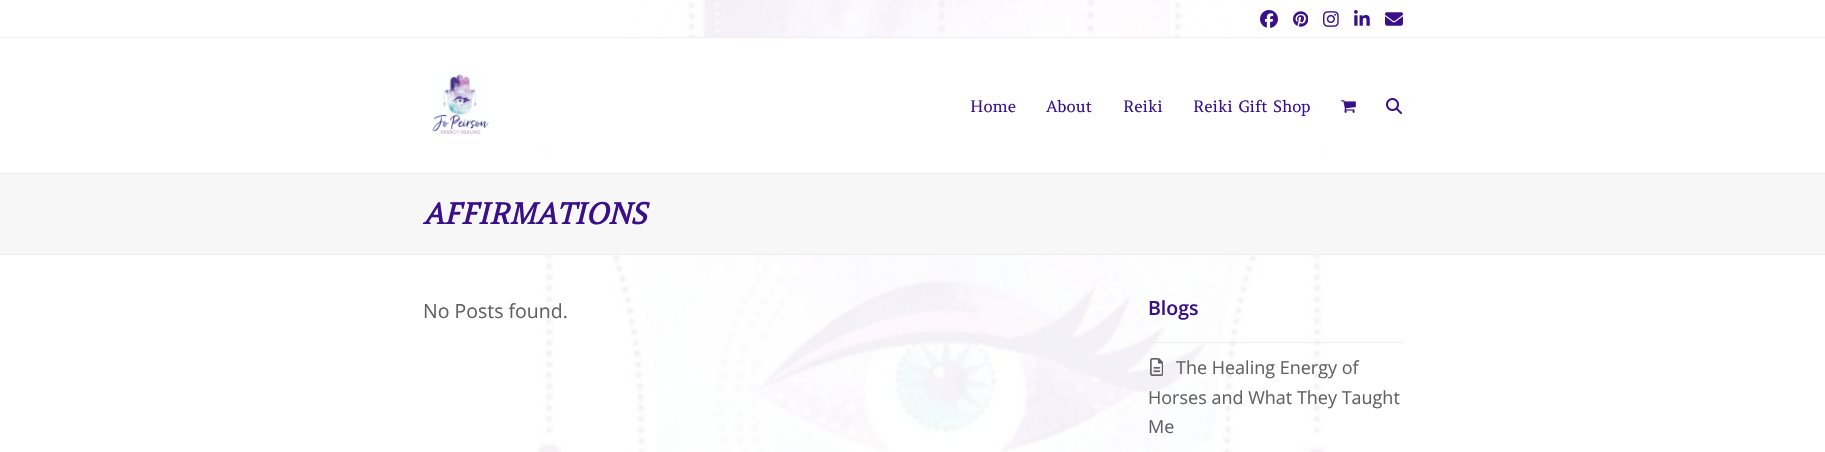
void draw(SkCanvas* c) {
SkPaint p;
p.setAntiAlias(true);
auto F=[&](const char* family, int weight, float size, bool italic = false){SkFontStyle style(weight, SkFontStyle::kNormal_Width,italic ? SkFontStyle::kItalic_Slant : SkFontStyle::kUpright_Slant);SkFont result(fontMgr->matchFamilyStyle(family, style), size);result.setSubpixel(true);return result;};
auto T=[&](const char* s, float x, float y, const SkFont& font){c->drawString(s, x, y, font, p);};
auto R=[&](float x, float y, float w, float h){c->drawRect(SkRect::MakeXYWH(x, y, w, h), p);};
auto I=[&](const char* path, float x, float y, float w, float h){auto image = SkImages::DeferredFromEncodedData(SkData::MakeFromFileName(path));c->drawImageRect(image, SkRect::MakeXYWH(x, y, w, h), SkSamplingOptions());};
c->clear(0xffffffff);
I("1.png",537,0,789,452);
p.setColor(0xffeeeeee);
R(0,37,1825,1);
I("2.png",1260,10,18,18);
I("3.png",1293,11,15,16);
I("4.png",1323,11,16,16);
I("5.png",1354,10,16,16);
I("6.png",1385,12,18,14);
p.setColor(0xffffffff);
R(546,38,775,135);
I("7.png",432,73,57,61);
auto f1 = F("Amethysta",400,16);
p.setColor(0xff390f8a);
T("Home",970,112,f1);
T("About",1046,112,f1);
T("Reiki",1123,112,f1);
T("Reiki Gift Shop",1193,112,f1);
I("8.png",1341,100,15,13);
I("9.png",1386,98,16,16);
p.setColor(0xfff7f7f7);
R(0,174,1825,80);
p.setColor(0xffeeeeee);
R(0,173,1825,1);
R(0,254,1825,1);
auto f2 = F("Amethysta",700,29,true);
p.setColor(0xff390f8a);
T("AFFIRMATIONS",423,224,f2);
auto f3 = F("Open Sans",400,19.5);
p.setColor(0xff616161);
T("No Posts found.",423,318,f3);
auto f4 = F("Open Sans",600,19.5);
p.setColor(0xff390f8a);
T("Blogs",1148,315,f4);
p.setColor(0xffeeeeee);
R(1148,342,255,1);
I("10.png",1150,358,13,18);
auto f5 = F("Open Sans",400,18);
p.setColor(0xff616161);
T("The Healing Energy of",1176,374,f5);
T("Horses and What They Taught",1148,404,f5);
T("Me",1148,433,f5);
}
